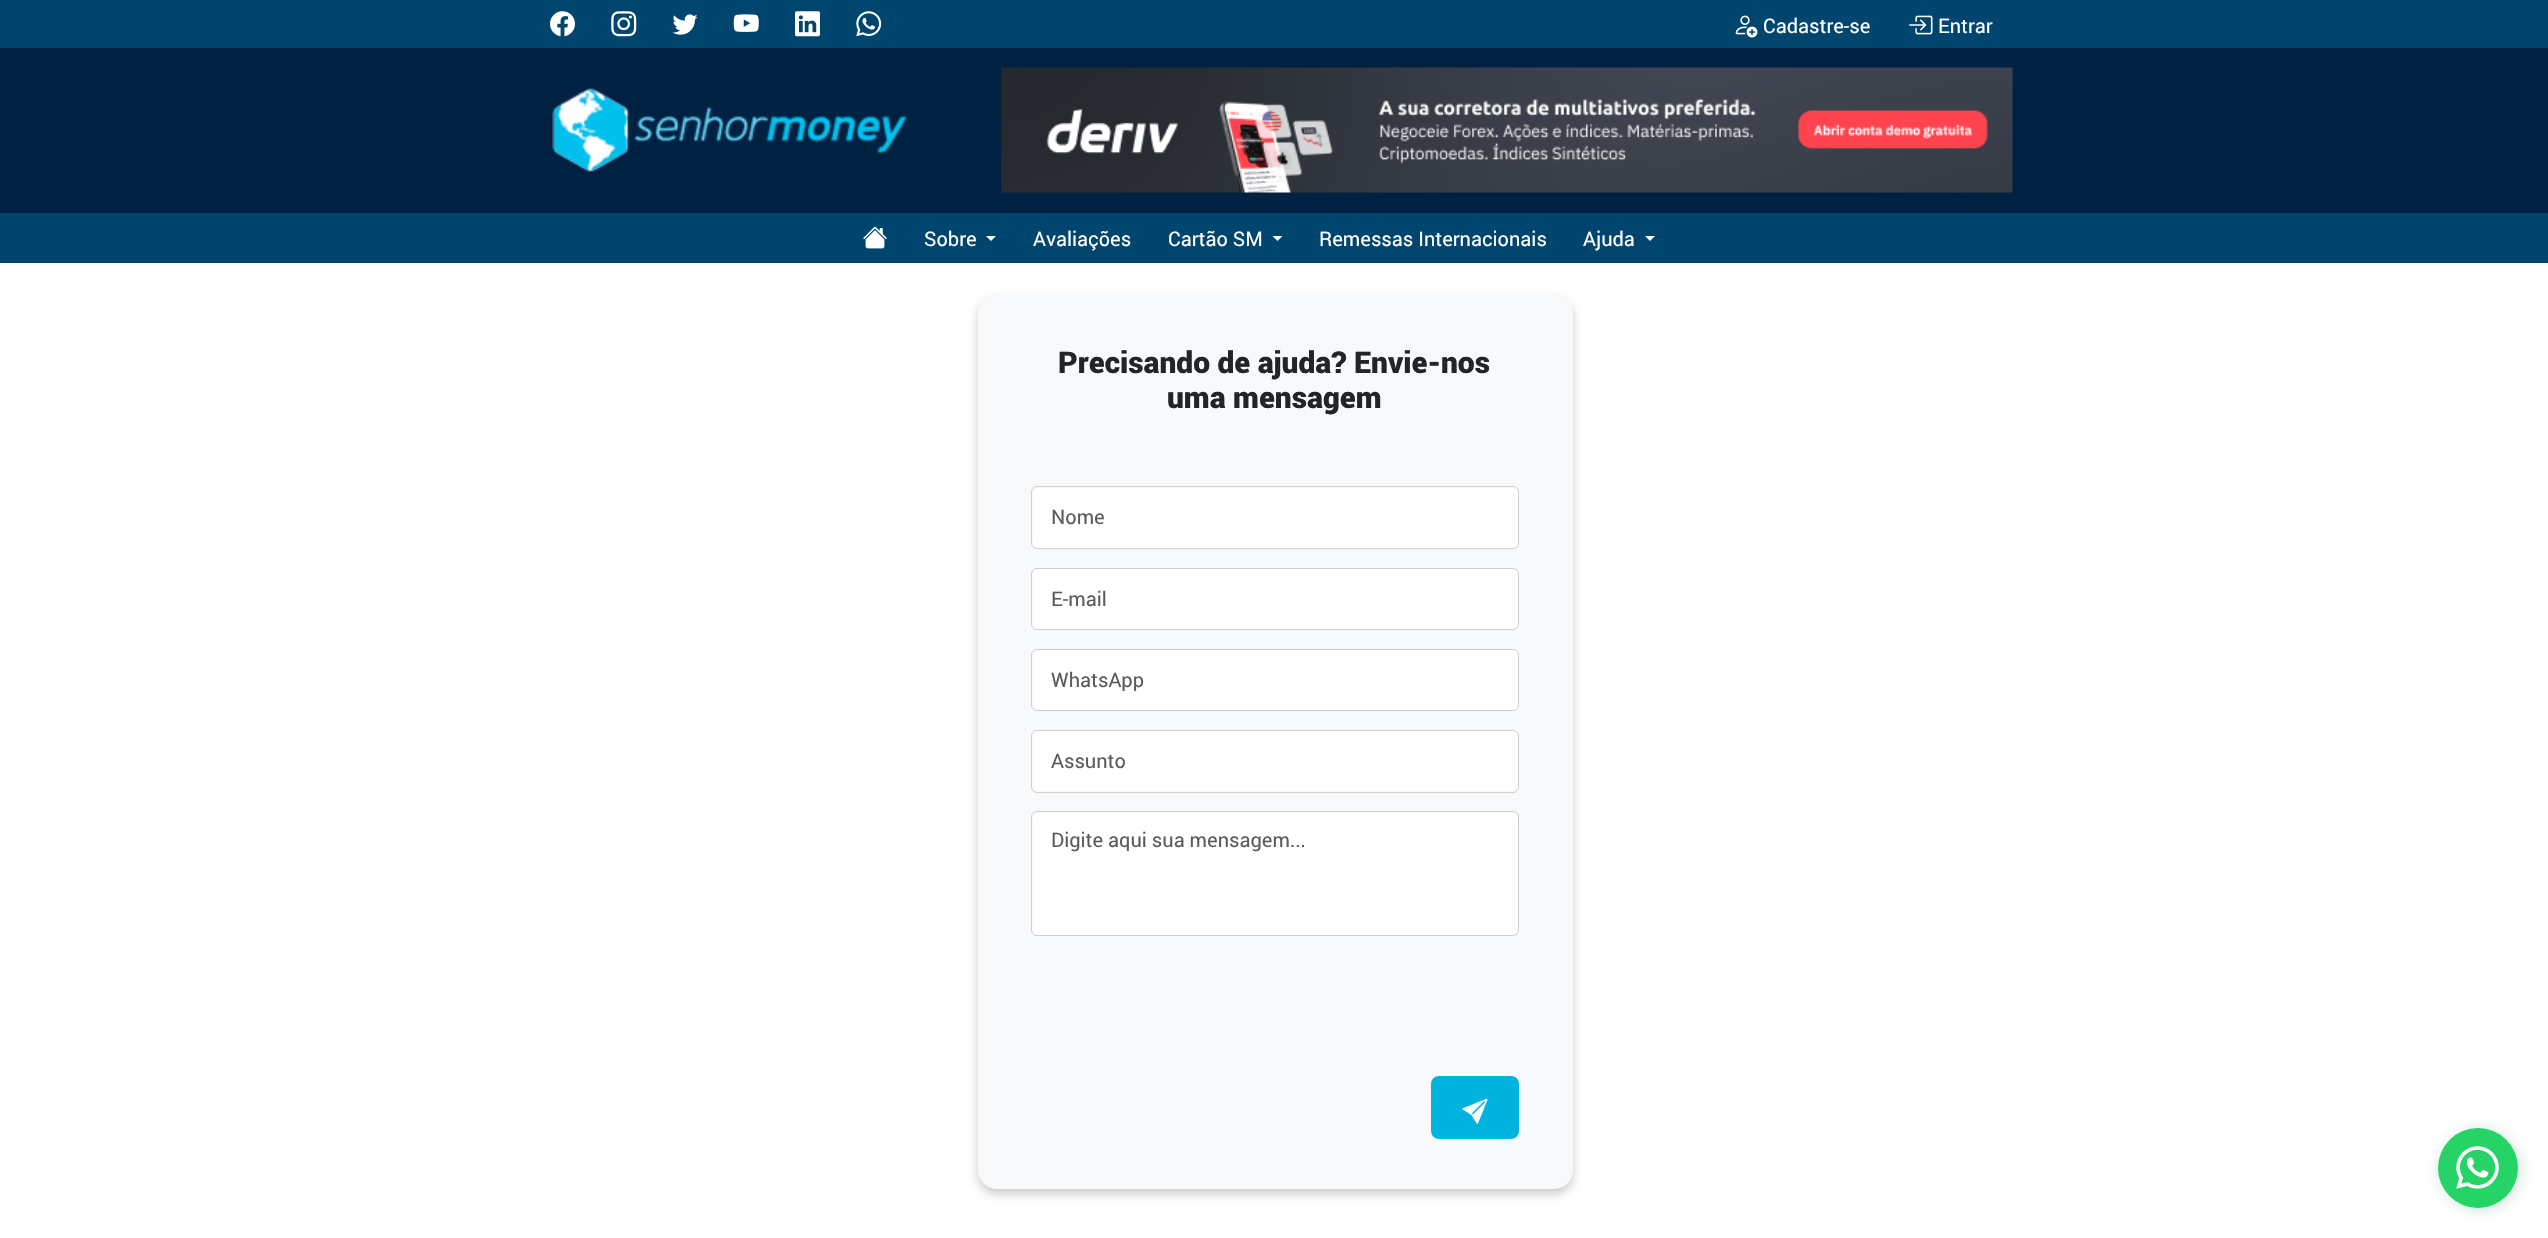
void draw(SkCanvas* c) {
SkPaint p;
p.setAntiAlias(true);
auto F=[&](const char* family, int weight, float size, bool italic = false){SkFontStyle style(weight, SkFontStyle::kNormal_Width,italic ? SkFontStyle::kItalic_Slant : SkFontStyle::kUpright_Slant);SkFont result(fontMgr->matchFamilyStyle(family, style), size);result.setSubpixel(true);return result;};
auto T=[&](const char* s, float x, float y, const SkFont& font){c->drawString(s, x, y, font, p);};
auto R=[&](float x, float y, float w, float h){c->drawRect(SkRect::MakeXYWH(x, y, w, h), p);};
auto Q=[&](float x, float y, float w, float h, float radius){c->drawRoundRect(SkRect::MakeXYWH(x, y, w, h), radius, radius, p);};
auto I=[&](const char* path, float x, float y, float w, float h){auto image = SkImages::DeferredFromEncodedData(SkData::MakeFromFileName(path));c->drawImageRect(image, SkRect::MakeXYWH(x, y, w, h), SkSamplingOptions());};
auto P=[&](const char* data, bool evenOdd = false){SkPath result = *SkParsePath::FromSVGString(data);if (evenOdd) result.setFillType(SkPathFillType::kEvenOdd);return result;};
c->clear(0xffffffff);
p.setColor(0xff002141);
R(0,48,2548,165);
p.setColor(0xff00456e);
R(0,0,2548,48);
I("1.png",550,11,25,26);
I("2.png",611,11,26,26);
I("3.png",672,14,26,21);
I("4.png",733,14,26,18);
I("5.png",795,11,25,26);
I("6.png",856,11,26,26);
I("7.png",1735,15,23,23);
auto f1 = F("Roboto",400,20);
p.setColor(0xffffffff);
T("Cadastre-se",1763,33,f1);
I("8.png",1909,15,24,20);
T("Entrar",1938,33,f1);
I("9.png",552,88,355,84);
I("10.png",1001,67,1012,126);
p.setColor(0xff00456e);
R(0,213,2548,50);
I("11.png",863,227,24,22);
p.setColor(0xffffffff);
T("Sobre",924,246,f1);
c->drawPath(P("M986 236h10l-5 5z"),p);
T("Avaliações",1033,246,f1);
T("Cartão SM",1168,246,f1);
c->drawPath(P("M1272.5 236h10l-5 5z"),p);
T("Remessas Internacionais",1319,246,f1);
T("Ajuda",1583,246,f1);
c->drawPath(P("M1645 236h10l-5 5z"),p);
p.setColor(0x33000000);
p.setMaskFilter(SkMaskFilter::MakeBlur(kNormal_SkBlurStyle, 5));
c->drawRoundRect(SkRect::MakeXYWH(978,299,595,895),19,19,p);
p.setMaskFilter(nullptr);
p.setColor(0xfff8f9fa);
Q(978,294,595,895,19);
auto f2 = F("Roboto",900,30);
p.setColor(0xff212529);
T("Precisando de ajuda? Envie-nos",1058,373,f2);
T("uma mensagem",1167,408,f2);
p.setColor(0xffffffff);
Q(1033,488,485,60,5);
p.setStroke(true);
p.setStrokeWidth(1);
p.setColor(0xffcfcfcf);
c->drawRoundRect(SkRect::MakeXYWH(1031.5,486.5,487,62),5.5,5.5,p);
p.setStroke(false);
p.setColor(0xff595c5f);
T("Nome",1051,524,f1);
p.setColor(0xffffffff);
Q(1033,569,485,60,5);
p.setStroke(true);
p.setColor(0xffcfcfcf);
c->drawRoundRect(SkRect::MakeXYWH(1031.5,568.5,487,61),5.5,5.5,p);
p.setStroke(false);
p.setColor(0xff595c5f);
T("E-mail",1051,606,f1);
p.setColor(0xffffffff);
Q(1033,650,485,60,5);
p.setStroke(true);
p.setColor(0xffcfcfcf);
c->drawRoundRect(SkRect::MakeXYWH(1031.5,649.5,487,61),5.5,5.5,p);
p.setStroke(false);
p.setColor(0xff595c5f);
T("WhatsApp",1051,687,f1);
p.setColor(0xffffffff);
Q(1033,731,485,60,5);
p.setStroke(true);
p.setColor(0xffcfcfcf);
c->drawRoundRect(SkRect::MakeXYWH(1031.5,730.5,487,62),5.5,5.5,p);
p.setStroke(false);
p.setColor(0xff595c5f);
T("Assunto",1051,768,f1);
p.setColor(0xffffffff);
Q(1033,813,485,122,5);
p.setStroke(true);
p.setColor(0xffcfcfcf);
c->drawRoundRect(SkRect::MakeXYWH(1031.5,811.5,487,124),5.5,5.5,p);
p.setStroke(false);
p.setColor(0xff595c5f);
T("Digite aqui sua mensagem...",1051,847,f1);
p.setColor(0xff00b3de);
Q(1431,1076,88,63,8);
I("12.png",1462,1098,26,26);
p.setColor(0x33167c3c);
p.setMaskFilter(SkMaskFilter::MakeBlur(kNormal_SkBlurStyle, 7.5));
c->drawRoundRect(SkRect::MakeXYWH(2440,1130,80,80),40,40,p);
p.setMaskFilter(nullptr);
p.setColor(0xff25d366);
c->drawCircle(2478,1168,40,p);
I("13.png",2456,1146,43,43);
}
